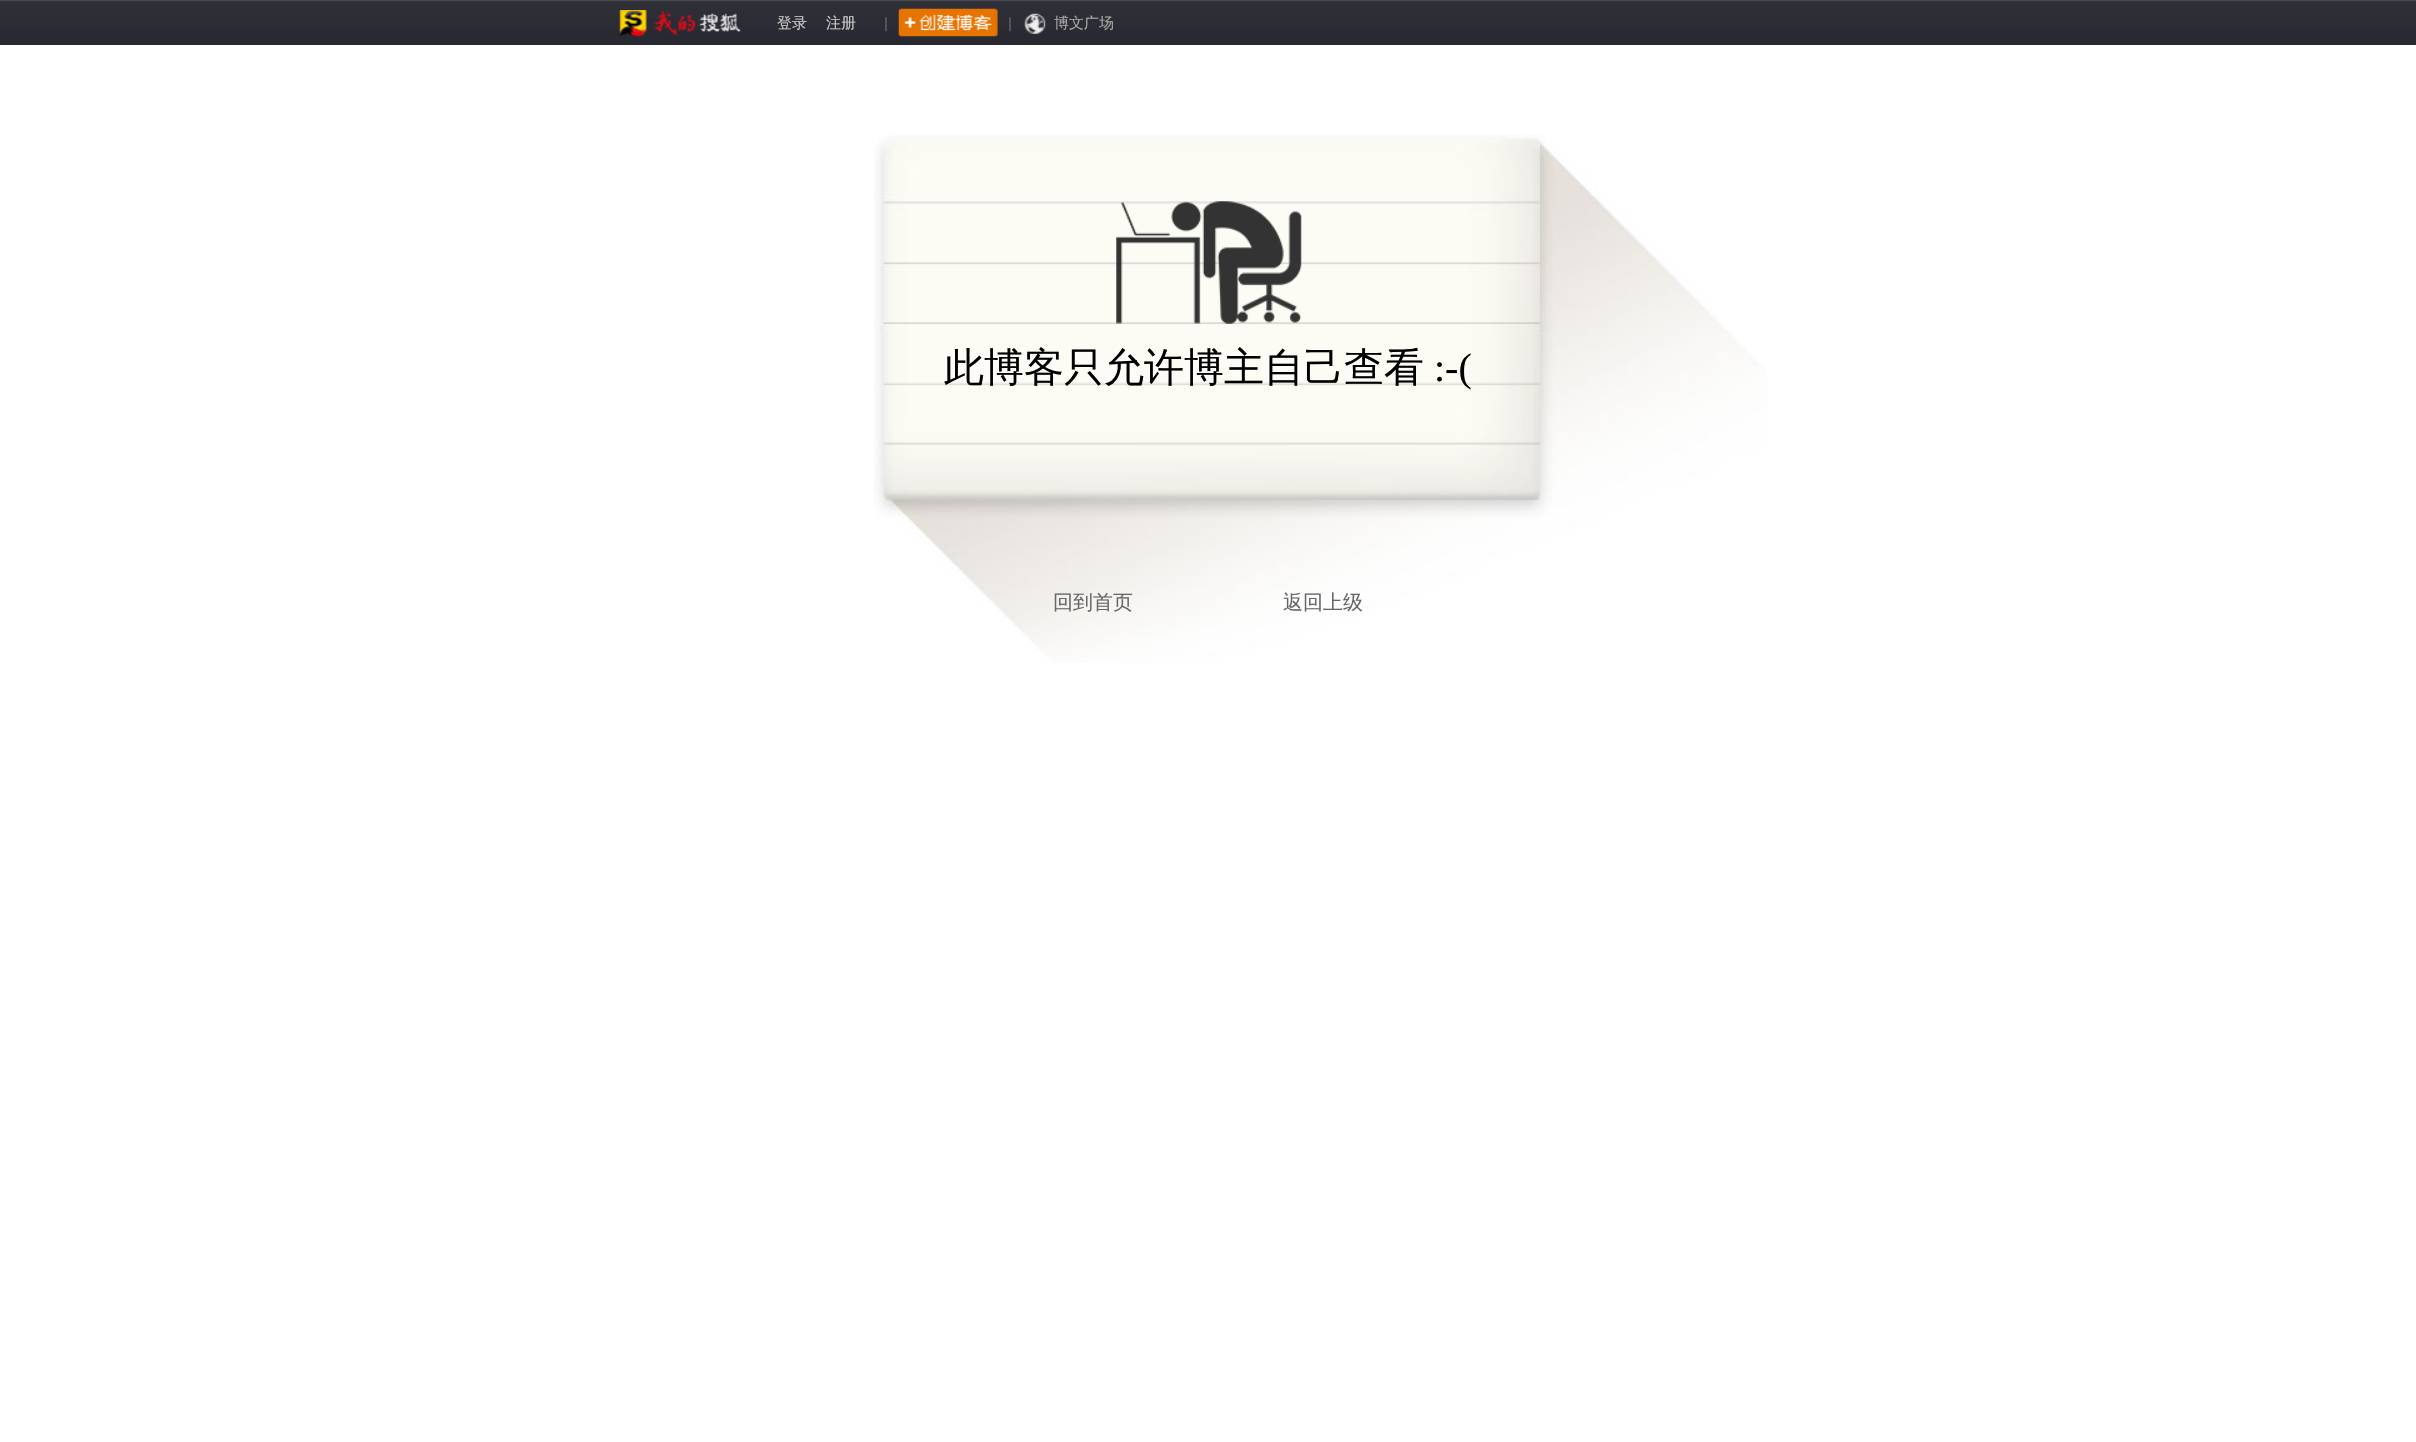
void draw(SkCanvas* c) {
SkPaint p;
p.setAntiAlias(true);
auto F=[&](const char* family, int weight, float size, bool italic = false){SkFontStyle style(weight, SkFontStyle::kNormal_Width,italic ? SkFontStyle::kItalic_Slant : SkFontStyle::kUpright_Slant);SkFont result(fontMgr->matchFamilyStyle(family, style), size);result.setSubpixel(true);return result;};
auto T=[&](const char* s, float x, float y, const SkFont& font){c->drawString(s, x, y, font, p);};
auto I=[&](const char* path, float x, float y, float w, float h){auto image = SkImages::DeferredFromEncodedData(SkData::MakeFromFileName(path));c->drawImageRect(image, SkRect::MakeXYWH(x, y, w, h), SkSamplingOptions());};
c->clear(0xffffffff);
I("1.png",0,0,2416,45);
I("2.png",619,10,122,27);
auto f1 = F("WenQuanYi Zen Hei",500,15);
p.setColor(0xffcccccc);
T("登录",777,28,f1);
T("注册",826,28,f1);
auto f2 = F("Liberation Sans",400,15);
p.setColor(0xff666666);
T("|",884,28,f2);
I("3.png",898,8,100,29);
T("|",1008,28,f2);
I("4.png",1024,13,22,21);
p.setColor(0xffa8a8a8);
T("博文广场",1054,28,f1);
I("5.png",874,135,893,528);
I("6.png",1116,201,186,123);
auto f3 = F("WenQuanYi Zen Hei",500,40);
p.setColor(0xff000000);
T("此博客只允许博主自己查看",944,381,f3);
auto f4 = F("Liberation Serif",400,40);
T(":-(",1434,381,f4);
auto f5 = F("WenQuanYi Zen Hei",500,20);
p.setColor(0xff666666);
T("回到首页",1053,609,f5);
T("返回上级",1283,609,f5);
}
